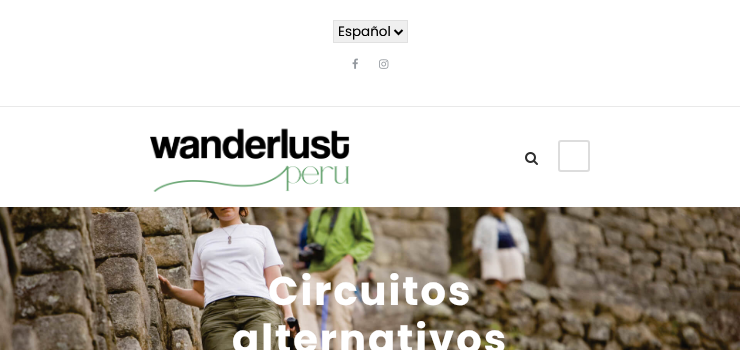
void draw(SkCanvas* c) {
SkPaint p;
p.setAntiAlias(true);
auto F=[&](const char* family, int weight, float size, bool italic = false){SkFontStyle style(weight, SkFontStyle::kNormal_Width,italic ? SkFontStyle::kItalic_Slant : SkFontStyle::kUpright_Slant);SkFont result(fontMgr->matchFamilyStyle(family, style), size);result.setSubpixel(true);return result;};
auto T=[&](const char* s, float x, float y, const SkFont& font){c->drawString(s, x, y, font, p);};
auto L=[&](const char* s, float x, float y, const SkFont& font, const SkPaint& ink, float letter, float word){std::vector<SkGlyphID> glyphs(font.countText(s, strlen(s), SkTextEncoding::kUTF8));std::vector<float> xs(glyphs.size());font.textToGlyphs(s, strlen(s), SkTextEncoding::kUTF8, glyphs);font.getXPos(glyphs, xs, x);float extra = 0;for (size_t i = 0; i < glyphs.size(); i++) {xs[i] += extra;extra += letter + word * (glyphs[i] == font.unicharToGlyph(' '));}c->drawTextBlob(SkTextBlob::MakeFromPosHGlyphs(glyphs, xs, y, font), 0, 0, ink);};
auto R=[&](float x, float y, float w, float h){c->drawRect(SkRect::MakeXYWH(x, y, w, h), p);};
auto I=[&](const char* path, float x, float y, float w, float h){auto image = SkImages::DeferredFromEncodedData(SkData::MakeFromFileName(path));c->drawImageRect(image, SkRect::MakeXYWH(x, y, w, h), SkSamplingOptions());};
auto P=[&](const char* data, bool evenOdd = false){SkPath result = *SkParsePath::FromSVGString(data);if (evenOdd) result.setFillType(SkPathFillType::kEvenOdd);return result;};
c->clear(0xffffffff);
p.setColor(0xffe9e9e9);
R(0,106,740,1);
p.setColor(0xffefefef);
c->drawRect(SkRect::MakeXYWH(333.5,20.5,74,22),p);
p.setStroke(true);
p.setStrokeWidth(1);
p.setColor(0xffe1e1e1);
c->drawRect(SkRect::MakeXYWH(333.5,20.5,74,22),p);
p.setStrokeWidth(2);
p.setColor(0xff000000);
c->drawPath(P("M394.5 30l4 4l4-4"),p);
auto f1 = F("Poppins",400,13.5);
p.setStroke(false);
T("Español",338,36,f1);
I("1.png",352,58,6,11);
I("2.png",379,59,10,10);
I("3.png",150,128,200,64);
I("4.png",525,152,13,13);
p.setStroke(true);
p.setColor(0xffdddddd);
c->drawRoundRect(SkRect::MakeXYWH(559,141,30,30),2,2,p);
I("5.png",0,207,740,143);
auto f2 = F("Poppins",700,40);
p.setStroke(false);
p.setColor(0xffffffff);
L("Circuitos",268,305,f2,p,2,0);
L("alternativos",232,353,f2,p,2,0);
}
